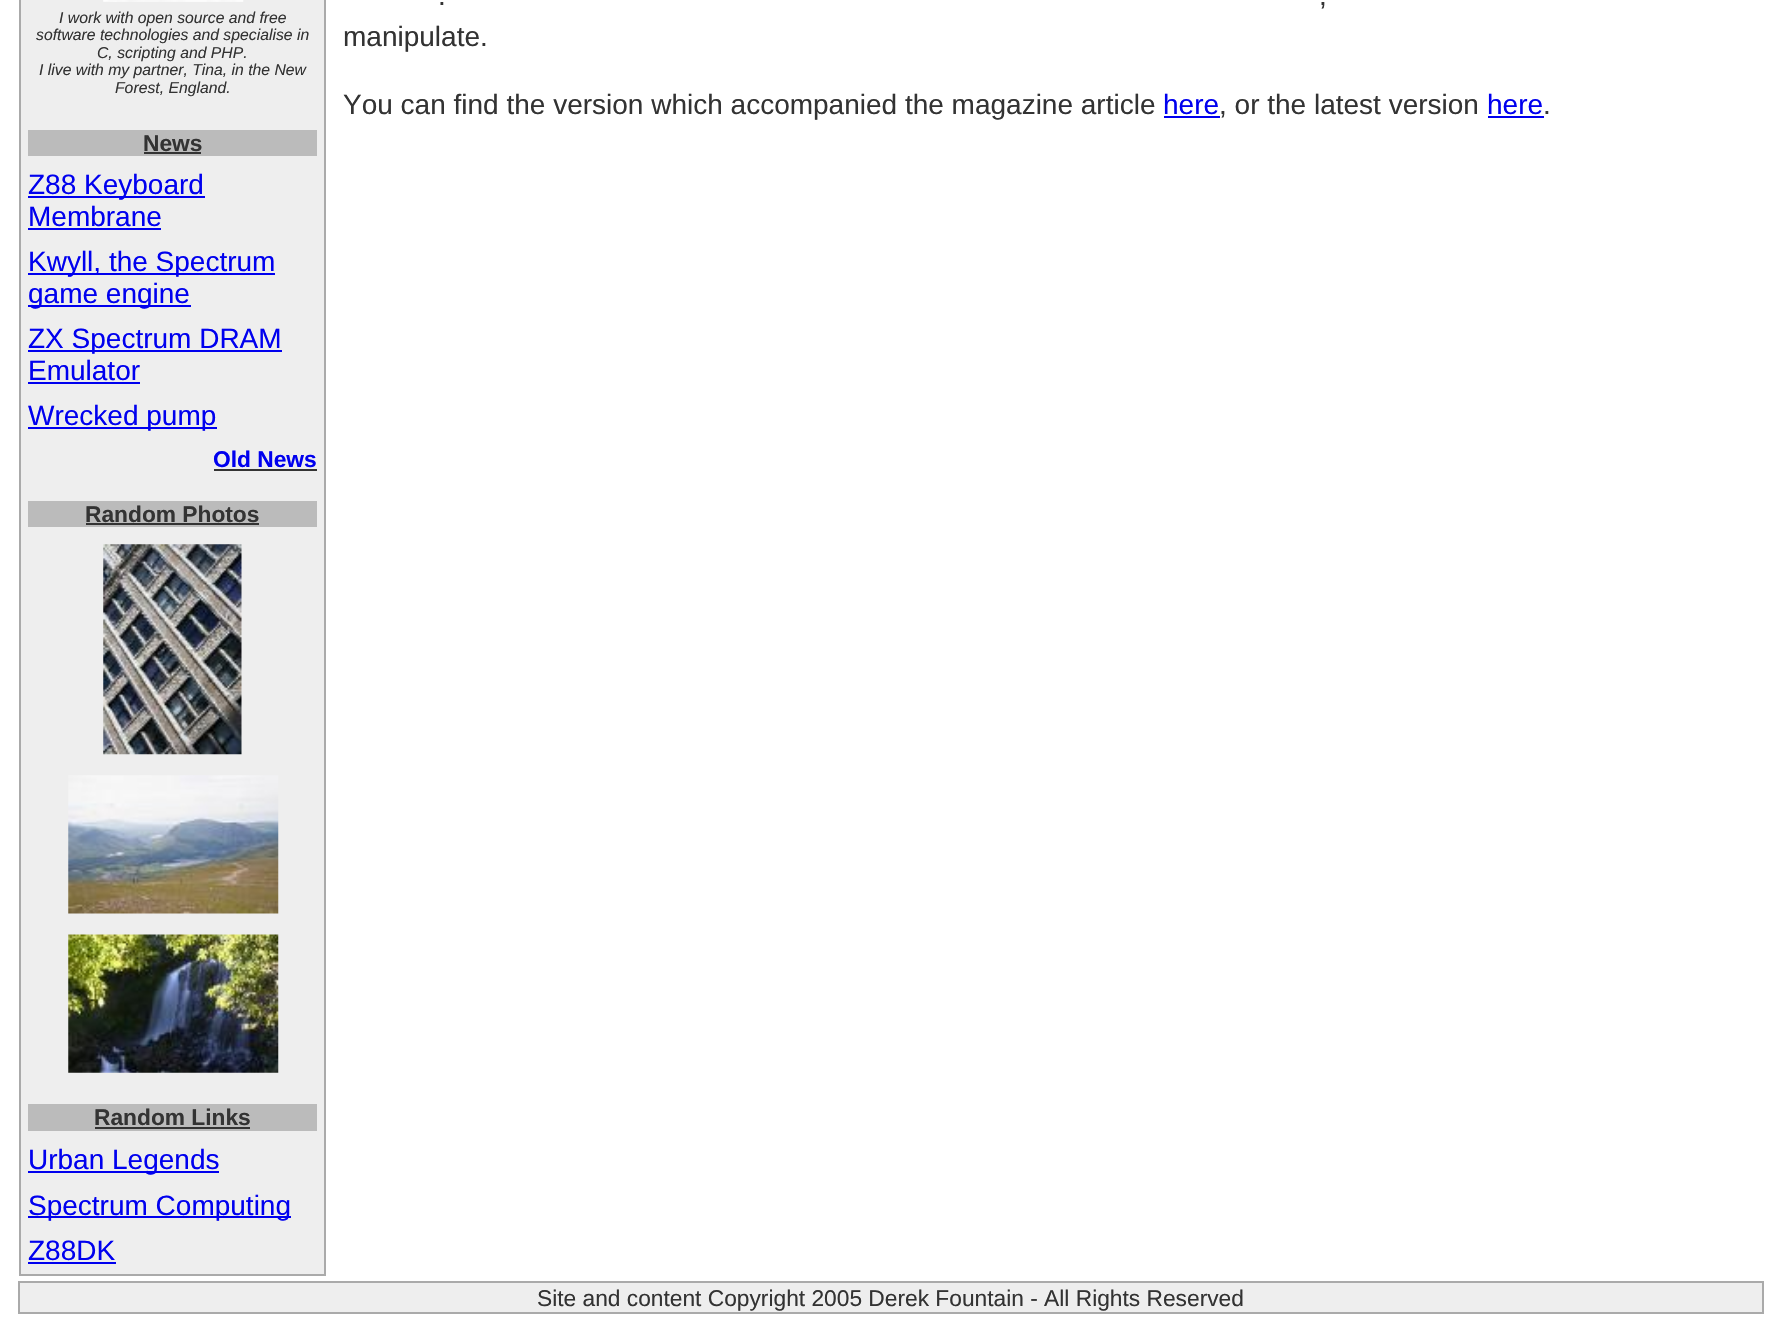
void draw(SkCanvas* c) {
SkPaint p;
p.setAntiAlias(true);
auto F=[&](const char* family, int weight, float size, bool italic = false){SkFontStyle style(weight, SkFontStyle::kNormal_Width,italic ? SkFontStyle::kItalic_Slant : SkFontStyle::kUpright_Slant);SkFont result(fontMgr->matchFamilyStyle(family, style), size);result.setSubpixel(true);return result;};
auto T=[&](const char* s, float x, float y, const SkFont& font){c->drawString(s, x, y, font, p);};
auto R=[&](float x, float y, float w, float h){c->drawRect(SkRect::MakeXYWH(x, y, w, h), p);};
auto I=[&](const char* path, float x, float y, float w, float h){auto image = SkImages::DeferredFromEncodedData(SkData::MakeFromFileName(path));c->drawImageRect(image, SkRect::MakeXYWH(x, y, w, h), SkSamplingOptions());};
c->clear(0xffffffff);
p.setColor(0xffeeeeee);
c->drawRect(SkRect::MakeXYWH(20,-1,305,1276),p);
p.setStroke(true);
p.setStrokeWidth(2);
p.setColor(0xffaaaaaa);
c->drawRect(SkRect::MakeXYWH(20,-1,305,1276),p);
I("1.png",103,0,141,2);
auto f1 = F("Liberation Sans",400,15.75,true);
p.setStroke(false);
p.setColor(0xff333333);
T("I work with open source and free",59,23,f1);
T("software technologies and specialise in",36,40,f1);
T("C, scripting and PHP.",97,58,f1);
T("I live with my partner, Tina, in the New",39,75,f1);
T("Forest, England.",115,93,f1);
p.setColor(0xffbbbbbb);
R(28,130,289,26);
auto f2 = F("Liberation Sans",700,22.75);
p.setColor(0xff333333);
T("News",143,151,f2);
R(144,152,57,2);
p.setColor(0xff0000ee);
R(28,196,177,2);
auto f3 = F("Liberation Sans",400,28);
T("Z88 Keyboard",28,194,f3);
T("Membrane",28,226,f3);
R(28,228,133,2);
R(28,273,247,2);
T("Kwyll, the Spectrum",28,271,f3);
R(28,305,163,2);
T("game engine",28,303,f3);
R(28,350,254,2);
T("ZX Spectrum DRAM",28,348,f3);
T("Emulator",28,380,f3);
R(28,382,112,2);
R(28,427,189,2);
T("Wrecked pump",28,425,f3);
T("Old News",213,467,f2);
p.setColor(0xff333333);
R(214,469,103,2);
p.setColor(0xffbbbbbb);
R(28,501,289,26);
p.setColor(0xff333333);
T("Random Photos",85,522,f2);
R(86,523,173,2);
I("2.png",103,544,139,211);
I("3.png",68,775,211,139);
I("4.png",68,934,211,139);
p.setColor(0xffbbbbbb);
R(28,1104,289,27);
p.setColor(0xff333333);
T("Random Links",94,1125,f2);
R(95,1127,155,2);
p.setColor(0xff0000ee);
R(28,1171,191,2);
T("Urban Legends",28,1169,f3);
R(28,1216,263,2);
T("Spectrum Computing",28,1215,f3);
T("Z88DK",28,1260,f3);
R(28,1262,88,2);
p.setColor(0xff333333);
T(".",438,5,f3);
T(",",1319,5,f3);
T("manipulate.",343,46,f3);
T("You can find the version which accompanied the magazine article",343,114,f3);
p.setColor(0xff0000ee);
T("here",1163,114,f3);
R(1164,116,56,2);
p.setColor(0xff333333);
T(", or the latest version",1219,114,f3);
p.setColor(0xff0000ee);
T("here",1487,114,f3);
R(1488,116,56,2);
p.setColor(0xff333333);
T(".",1543,114,f3);
p.setColor(0xffeeeeee);
c->drawRect(SkRect::MakeXYWH(19,1282,1744,31),p);
p.setStroke(true);
p.setColor(0xffaaaaaa);
c->drawRect(SkRect::MakeXYWH(19,1282,1744,31),p);
auto f4 = F("Liberation Sans",400,22.75);
p.setStroke(false);
p.setColor(0xff333333);
T("Site and content Copyright 2005 Derek Fountain - All Rights Reserved",537,1306,f4);
}
